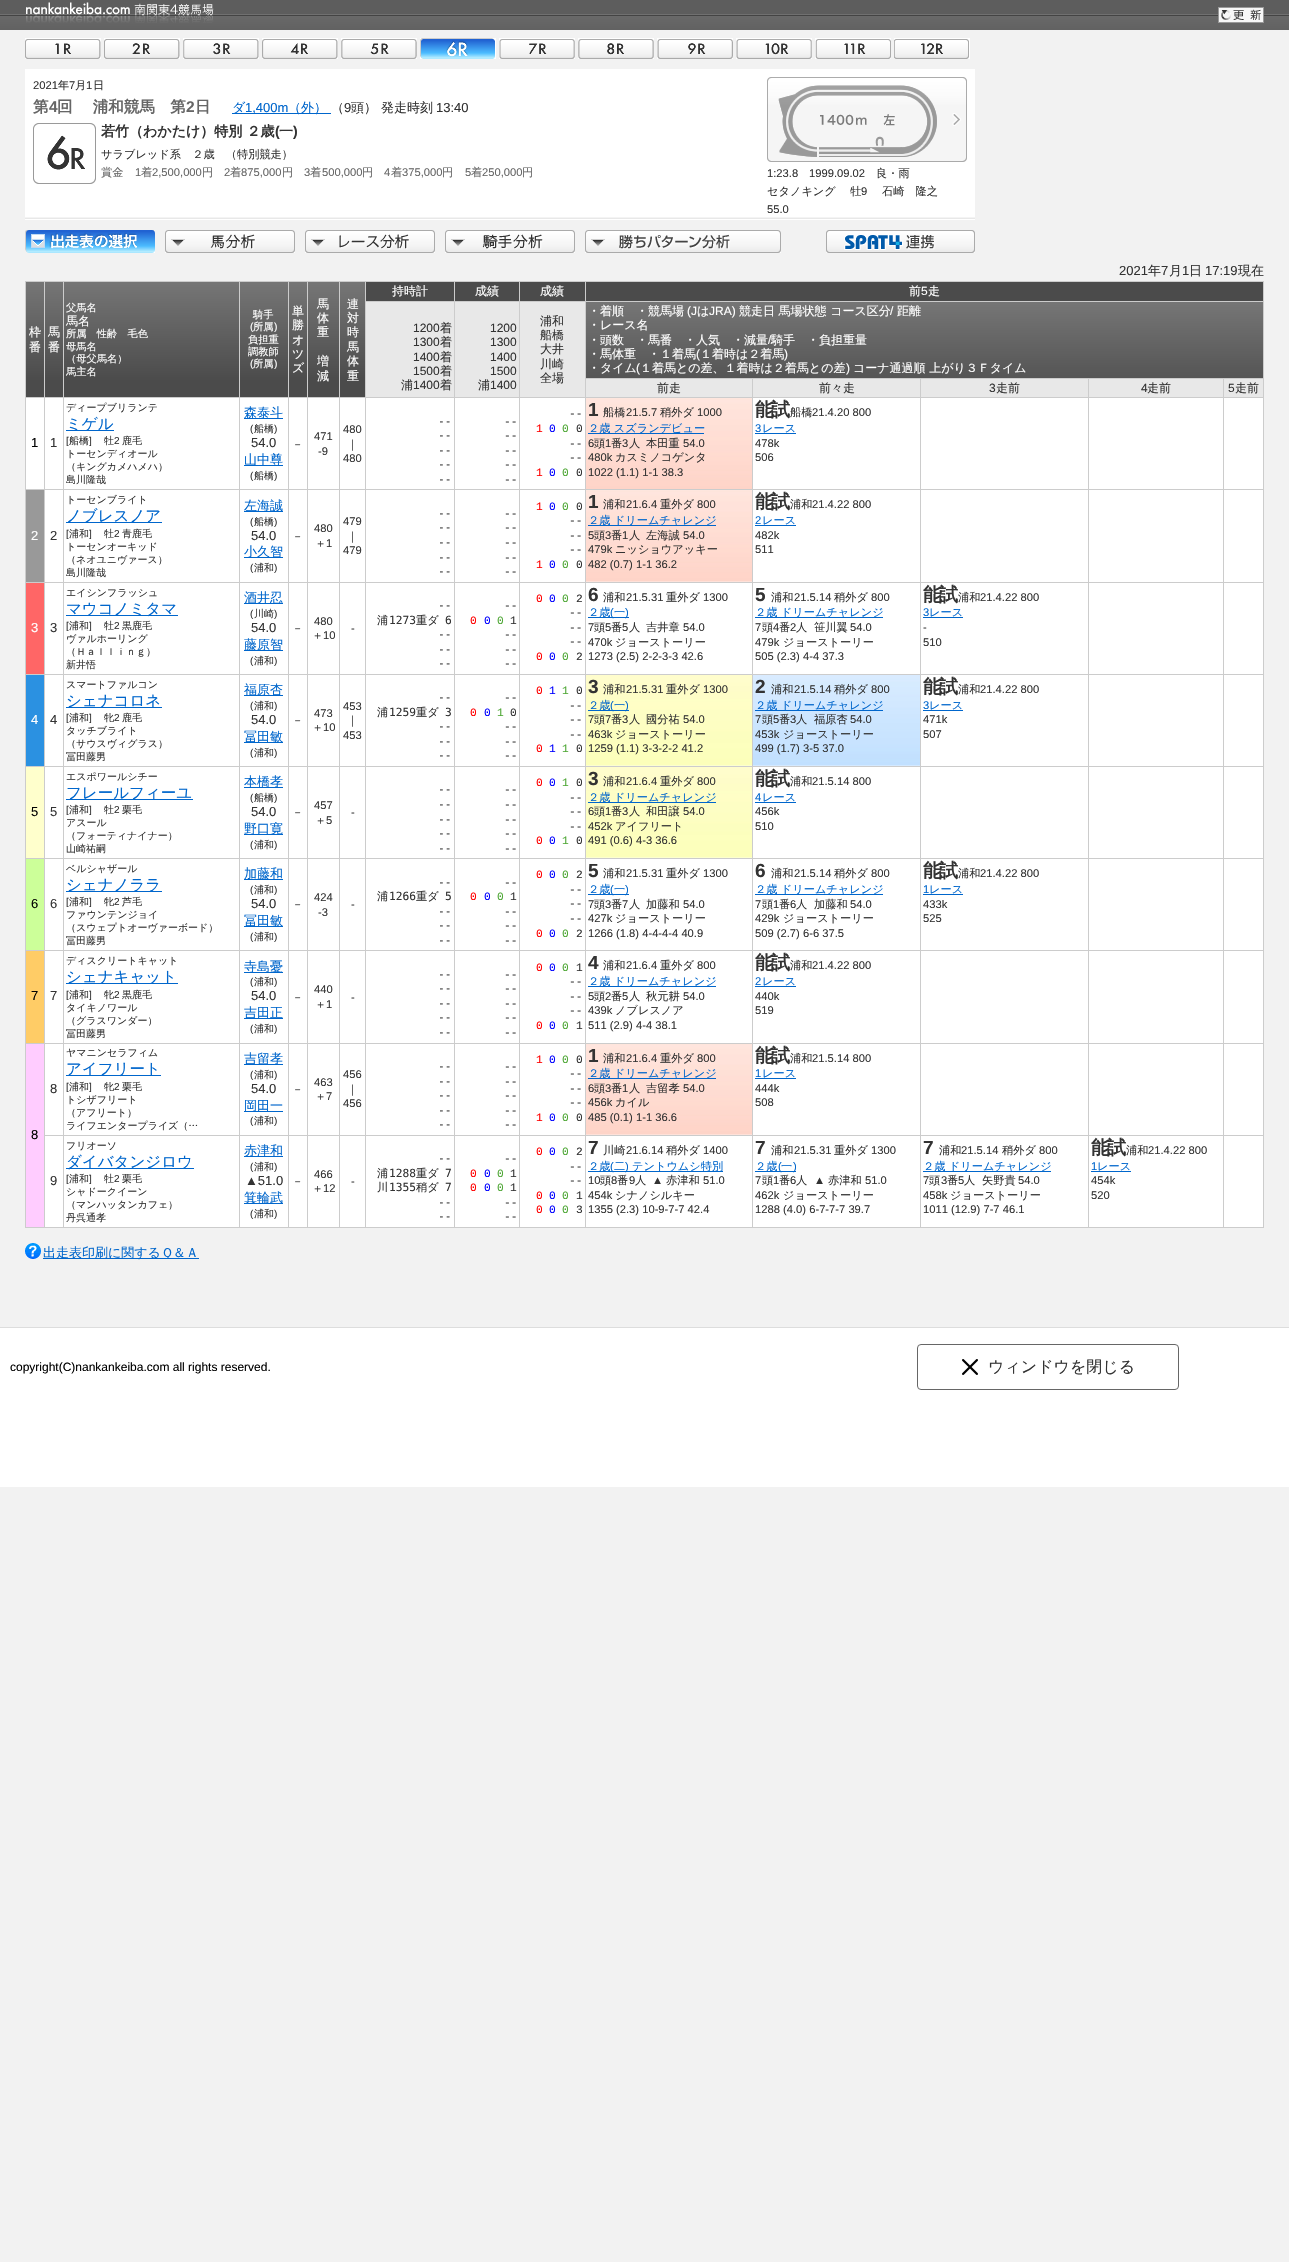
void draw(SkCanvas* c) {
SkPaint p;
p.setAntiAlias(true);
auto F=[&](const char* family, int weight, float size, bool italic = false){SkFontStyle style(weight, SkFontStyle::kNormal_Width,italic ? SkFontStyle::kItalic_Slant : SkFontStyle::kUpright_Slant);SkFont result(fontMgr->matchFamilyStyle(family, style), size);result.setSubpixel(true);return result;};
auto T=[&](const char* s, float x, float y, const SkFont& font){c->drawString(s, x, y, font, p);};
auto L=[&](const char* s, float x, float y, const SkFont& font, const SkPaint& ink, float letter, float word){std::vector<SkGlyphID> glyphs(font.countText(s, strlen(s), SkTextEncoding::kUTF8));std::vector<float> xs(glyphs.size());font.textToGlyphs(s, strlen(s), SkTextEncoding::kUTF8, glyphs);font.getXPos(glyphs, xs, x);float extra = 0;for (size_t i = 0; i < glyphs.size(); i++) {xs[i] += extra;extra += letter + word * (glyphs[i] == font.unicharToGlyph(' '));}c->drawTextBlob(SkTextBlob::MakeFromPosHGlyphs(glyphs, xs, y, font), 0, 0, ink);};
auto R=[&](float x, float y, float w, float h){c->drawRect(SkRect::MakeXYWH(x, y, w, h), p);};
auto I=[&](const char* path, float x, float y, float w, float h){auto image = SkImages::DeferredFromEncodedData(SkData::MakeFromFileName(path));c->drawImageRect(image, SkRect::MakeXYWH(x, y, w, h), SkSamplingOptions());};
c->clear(0xfff2f2f2);
I("1.png",0,0,1289,30);
I("2.png",26,2,188,21);
I("3.png",1218,7,46,16);
I("4.png",25,38,76,21);
I("5.png",104,38,76,21);
I("6.png",183,38,76,21);
I("7.png",262,38,76,21);
I("8.png",341,38,76,21);
I("9.png",420,38,76,21);
I("10.png",499,38,76,21);
I("11.png",578,38,76,21);
I("12.png",657,38,76,21);
I("13.png",736,38,76,21);
I("14.png",815,38,76,21);
I("15.png",894,38,76,21);
I("16.png",25,69,950,150);
p.setColor(0xffffffff);
R(25,219,950,1);
auto f1 = F("Liberation Sans",400,11.2);
p.setColor(0xff333333);
T("2021",33,89,f1);
auto f2 = F("WenQuanYi Zen Hei",500,11.2);
T("年",58,89,f2);
T("7",69,89,f1);
T("月",75,89,f2);
T("1",86,89,f1);
T("日",93,89,f2);
auto f3 = F("WenQuanYi Zen Hei",700,15.5);
p.setColor(0xff666666);
T("第",33,112,f3);
auto f4 = F("Liberation Sans",700,15.5);
T("4",49,112,f4);
T("回　 浦和競馬　第",57,112,f3);
T("2",186,112,f4);
T("日",195,112,f3);
p.setColor(0xff0066cc);
R(232,113,99,1);
auto f5 = F("WenQuanYi Zen Hei",500,13);
T("ダ",232,112,f5);
auto f6 = F("Liberation Sans",400,13);
T("1,400m",245,112,f6);
T("（外）",288,112,f5);
p.setColor(0xff333333);
T("（",331,112,f5);
T("9",344,112,f6);
T("頭） 発走時刻",351,112,f5);
T("13:40",436,112,f6);
I("17.png",33,123,63,61);
auto f7 = F("WenQuanYi Zen Hei",700,14);
T("若竹（わかたけ）特別 ２歳",101,136,f7);
auto f8 = F("Liberation Sans",700,14);
T("(",275,136,f8);
T("一",279,136,f7);
T(")",293,136,f8);
T("サラブレッド系　２歳　（特別競走）",101,158,f2);
p.setColor(0xff666666);
T("賞金",101,176,f2);
T("1",135,176,f1);
T("着",141,176,f2);
T("2,500,000",152,176,f1);
T("円",202,176,f2);
T("2",224,176,f1);
T("着",230,176,f2);
T("875,000",241,176,f1);
T("円",282,176,f2);
T("3",304,176,f1);
T("着",310,176,f2);
T("500,000",322,176,f1);
T("円",362,176,f2);
T("4",384,176,f1);
T("着",391,176,f2);
T("375,000",402,176,f1);
T("円",442,176,f2);
T("5",465,176,f1);
T("着",471,176,f2);
T("250,000",482,176,f1);
T("円",522,176,f2);
I("19.png",778,85,159,72);
I("18.png",767,77,200,85);
p.setColor(0xff333333);
T("1:23.8",767,177,f1);
T("1999.09.02",809,177,f1);
T("良・雨",876,177,f2);
T("セタノキング　 牡",767,195,f2);
T("9",861,195,f1);
T("石崎　隆之",882,195,f2);
T("55.0",767,213,f1);
I("20.png",25,230,130,23);
I("21.png",165,230,130,23);
I("22.png",305,230,130,23);
I("23.png",445,230,130,23);
I("24.png",585,230,196,23);
I("25.png",826,230,149,23);
T("2021",1119,275,f6);
T("年",1148,275,f5);
T("7",1161,275,f6);
T("月",1169,275,f5);
T("1",1182,275,f6);
T("日",1189,275,f5);
T("17:19",1205,275,f6);
T("現在",1238,275,f5);
p.setColor(0xffffffff);
R(26,398,1237,829);
p.setColor(0xffcccccc);
R(25,281,1239,1);
R(1263,281,1,947);
R(25,1227,1239,1);
R(25,281,1,947);
p.setColor(0xff4b4b4b);
R(366,282,88,19);
auto f9 = F("WenQuanYi Zen Hei",500,12);
p.setColor(0xffffffff);
T("持時計",392,295,f9);
p.setColor(0xff4b4b4b);
R(455,282,64,19);
p.setColor(0xffcccccc);
R(585,301,679,1);
R(1223,378,41,1);
R(1223,397,41,1);
R(1223,489,41,1);
R(1223,582,41,1);
R(1223,674,41,1);
R(1223,766,41,1);
R(1223,858,41,1);
R(1223,950,41,1);
R(1223,1043,41,1);
R(1223,1135,41,1);
R(1223,1135,1,93);
R(1088,1135,136,1);
R(1223,1043,1,93);
R(1088,1043,136,1);
R(1223,950,1,94);
R(1088,950,136,1);
R(1223,858,1,93);
R(1088,858,136,1);
R(1223,766,1,93);
R(1088,766,136,1);
R(1223,674,1,93);
R(1088,674,136,1);
R(1223,582,1,93);
R(1088,582,136,1);
R(1223,489,1,94);
R(1088,489,136,1);
R(1223,397,1,93);
R(1088,397,136,1);
R(1223,378,1,20);
R(1088,378,136,1);
R(1088,1135,1,93);
R(920,1135,169,1);
R(1088,1043,1,93);
R(920,1043,169,1);
R(1088,950,1,94);
R(920,950,169,1);
R(1088,858,1,93);
R(920,858,169,1);
R(1088,766,1,93);
R(920,766,169,1);
R(1088,674,1,93);
R(920,674,169,1);
R(1088,582,1,93);
R(920,582,169,1);
R(1088,489,1,94);
R(920,489,169,1);
R(1088,397,1,93);
R(920,397,169,1);
R(1088,378,1,20);
R(920,378,169,1);
R(920,1135,1,93);
R(752,1135,169,1);
R(920,1043,1,93);
R(752,1043,169,1);
R(920,950,1,94);
R(752,950,169,1);
R(920,858,1,93);
R(752,858,169,1);
R(920,766,1,93);
R(752,766,169,1);
R(920,674,1,93);
R(752,674,169,1);
R(920,582,1,93);
R(752,582,169,1);
R(920,489,1,94);
R(752,489,169,1);
R(920,397,1,93);
R(752,397,169,1);
R(920,378,1,20);
R(752,378,169,1);
R(752,1135,1,93);
R(585,1135,168,1);
R(752,1043,1,93);
R(585,1043,168,1);
R(752,950,1,94);
R(585,950,168,1);
R(752,858,1,93);
R(585,858,168,1);
R(752,766,1,93);
R(585,766,168,1);
R(752,674,1,93);
R(585,674,168,1);
R(752,582,1,93);
R(585,582,168,1);
R(752,489,1,94);
R(585,489,168,1);
R(752,397,1,93);
R(585,397,168,1);
R(752,378,1,20);
R(585,378,168,1);
R(585,1135,1,93);
R(519,1135,67,1);
R(585,1043,1,93);
R(519,1043,67,1);
R(585,950,1,94);
R(519,950,67,1);
R(585,858,1,93);
R(519,858,67,1);
R(585,766,1,93);
R(519,766,67,1);
R(585,674,1,93);
R(519,674,67,1);
R(585,582,1,93);
R(519,582,67,1);
R(585,489,1,94);
R(519,489,67,1);
R(585,397,1,93);
R(519,397,67,1);
R(585,378,1,20);
R(585,301,1,78);
R(519,301,67,1);
R(519,1135,1,93);
R(454,1135,66,1);
R(519,1043,1,93);
R(454,1043,66,1);
R(519,950,1,94);
R(454,950,66,1);
R(519,858,1,93);
R(454,858,66,1);
R(519,766,1,93);
R(454,766,66,1);
R(519,674,1,93);
R(454,674,66,1);
R(519,582,1,93);
R(454,582,66,1);
R(519,489,1,94);
R(454,489,66,1);
R(519,397,1,93);
R(454,397,66,1);
R(519,301,1,97);
R(454,301,66,1);
R(454,1135,1,93);
R(365,1135,90,1);
R(454,1043,1,93);
R(365,1043,90,1);
R(454,950,1,94);
R(365,950,90,1);
R(454,858,1,93);
R(365,858,90,1);
R(454,766,1,93);
R(365,766,90,1);
R(454,674,1,93);
R(365,674,90,1);
R(454,582,1,93);
R(365,582,90,1);
R(454,489,1,94);
R(365,489,90,1);
R(454,397,1,93);
R(365,397,90,1);
R(454,301,1,97);
R(365,301,90,1);
R(454,281,1,21);
p.setColor(0xffffffff);
T("成績",475,295,f9);
p.setColor(0xff4b4b4b);
R(520,282,65,19);
p.setColor(0xffcccccc);
R(519,281,1,21);
p.setColor(0xffffffff);
T("成績",540,295,f9);
p.setColor(0xff4b4b4b);
R(586,282,677,19);
p.setColor(0xffcccccc);
R(585,281,1,21);
p.setColor(0xffffffff);
T("前",909,295,f9);
auto f10 = F("Liberation Sans",400,12);
T("5",921,295,f10);
T("走",928,295,f9);
I("26.png",26,282,18,115);
T("枠",29,336,f9);
T("番",29,351,f9);
I("26.png",45,282,18,115);
p.setColor(0xffcccccc);
R(365,1135,1,93);
R(339,1135,27,1);
R(365,1043,1,93);
R(339,1043,27,1);
R(365,950,1,94);
R(339,950,27,1);
R(365,858,1,93);
R(339,858,27,1);
R(365,766,1,93);
R(339,766,27,1);
R(365,674,1,93);
R(339,674,27,1);
R(365,582,1,93);
R(339,582,27,1);
R(365,489,1,94);
R(339,489,27,1);
R(365,397,1,93);
R(339,397,27,1);
R(339,1135,1,93);
R(307,1135,33,1);
R(339,1043,1,93);
R(307,1043,33,1);
R(339,950,1,94);
R(307,950,33,1);
R(339,858,1,93);
R(307,858,33,1);
R(339,766,1,93);
R(307,766,33,1);
R(339,674,1,93);
R(307,674,33,1);
R(339,582,1,93);
R(307,582,33,1);
R(339,489,1,94);
R(307,489,33,1);
R(339,397,1,93);
R(307,397,33,1);
R(307,1135,1,93);
R(288,1135,20,1);
R(307,1043,1,93);
R(288,1043,20,1);
R(307,950,1,94);
R(288,950,20,1);
R(307,858,1,93);
R(288,858,20,1);
R(307,766,1,93);
R(288,766,20,1);
R(307,674,1,93);
R(288,674,20,1);
R(307,582,1,93);
R(288,582,20,1);
R(307,489,1,94);
R(288,489,20,1);
R(307,397,1,93);
R(288,397,20,1);
R(288,1135,1,93);
R(239,1135,50,1);
R(288,1043,1,93);
R(239,1043,50,1);
R(288,950,1,94);
R(239,950,50,1);
R(288,858,1,93);
R(239,858,50,1);
R(288,766,1,93);
R(239,766,50,1);
R(288,674,1,93);
R(239,674,50,1);
R(288,582,1,93);
R(239,582,50,1);
R(288,489,1,94);
R(239,489,50,1);
R(288,397,1,93);
R(239,397,50,1);
R(239,1135,1,93);
R(63,1135,177,1);
R(239,1043,1,93);
R(63,1043,177,1);
R(239,950,1,94);
R(63,950,177,1);
R(239,858,1,93);
R(63,858,177,1);
R(239,766,1,93);
R(63,766,177,1);
R(239,674,1,93);
R(63,674,177,1);
R(239,582,1,93);
R(63,582,177,1);
R(239,489,1,94);
R(63,489,177,1);
R(239,397,1,93);
R(63,397,177,1);
R(63,1135,1,93);
R(44,1135,20,1);
R(63,1043,1,93);
R(44,1043,20,1);
R(63,950,1,94);
R(44,950,20,1);
R(63,858,1,93);
R(44,858,20,1);
R(63,766,1,93);
R(44,766,20,1);
R(63,674,1,93);
R(44,674,20,1);
R(63,582,1,93);
R(44,582,20,1);
R(63,489,1,94);
R(44,489,20,1);
R(63,397,1,93);
R(44,397,20,1);
R(44,1135,1,93);
R(44,1043,1,93);
R(25,1043,20,1);
R(44,950,1,94);
R(25,950,20,1);
R(44,858,1,93);
R(25,858,20,1);
R(44,766,1,93);
R(25,766,20,1);
R(44,674,1,93);
R(25,674,20,1);
R(44,582,1,93);
R(25,582,20,1);
R(44,489,1,94);
R(25,489,20,1);
R(44,397,1,93);
R(25,397,20,1);
R(44,281,1,117);
p.setColor(0xffffffff);
T("馬",48,336,f9);
T("番",48,351,f9);
I("27.png",64,282,175,115);
p.setColor(0xffcccccc);
R(63,281,1,117);
auto f11 = F("WenQuanYi Zen Hei",500,10.25);
p.setColor(0xffffffff);
T("父馬名",66,311,f11);
T("馬名",66,325,f9);
T("所属　性齢　毛色",66,337,f11);
T("母馬名",66,350,f11);
T("（母父馬名）",66,362,f11);
T("馬主名",66,375,f11);
I("28.png",240,282,48,115);
p.setColor(0xffcccccc);
R(239,281,1,117);
p.setColor(0xffffffff);
T("騎手",253,318,f11);
auto f12 = F("Liberation Sans",400,10.25);
T("(",250,330,f12);
T("所属",253,330,f11);
T(")",274,330,f12);
T("負担重",248,343,f11);
T("調教師",248,355,f11);
T("(",250,367,f12);
T("所属",253,367,f11);
T(")",274,367,f12);
I("26.png",289,282,18,115);
p.setColor(0xffcccccc);
R(288,281,1,117);
p.setColor(0xffffffff);
T("単",292,315,f9);
T("勝",292,329,f9);
T("オ",292,344,f9);
T("ツ",292,358,f9);
T("ズ",292,372,f9);
I("29.png",308,282,31,115);
p.setColor(0xffcccccc);
R(307,281,1,117);
p.setColor(0xffffffff);
T("馬",317,308,f9);
T("体",317,322,f9);
T("重",317,336,f9);
T("増",317,365,f9);
T("減",317,380,f9);
I("30.png",340,282,25,115);
p.setColor(0xffcccccc);
R(339,281,1,117);
p.setColor(0xffffffff);
T("連",347,308,f9);
T("対",347,322,f9);
T("時",347,336,f9);
T("馬",347,351,f9);
T("体",347,365,f9);
T("重",347,380,f9);
p.setColor(0xffe8e8e8);
R(366,302,88,95);
p.setColor(0xffcccccc);
R(365,281,1,117);
p.setColor(0xff333333);
T("1200",413,332,f10);
T("着",440,332,f9);
T("1300",413,346,f10);
T("着",440,346,f9);
T("1400",413,361,f10);
T("着",440,361,f9);
T("1500",413,375,f10);
T("着",440,375,f9);
T("浦",401,389,f9);
T("1400",413,389,f10);
T("着",440,389,f9);
p.setColor(0xffe8e8e8);
R(455,302,64,95);
p.setColor(0xff333333);
T("1200",490,332,f10);
T("1300",490,346,f10);
T("1400",490,361,f10);
T("1500",490,375,f10);
T("浦",478,389,f9);
T("1400",490,389,f10);
p.setColor(0xffe8e8e8);
R(520,302,65,95);
p.setColor(0xff333333);
T("浦和",540,325,f9);
T("船橋",540,339,f9);
T("大井",540,353,f9);
T("川崎",540,368,f9);
T("全場",540,382,f9);
I("31.png",586,302,677,76);
p.setColor(0xffffffff);
T("・着順　・競馬場",588,315,f9);
T("(J",687,315,f10);
T("は",697,315,f9);
T("JRA)",709,315,f10);
T("競走日 馬場状態 コース区分",739,315,f9);
T("/",890,315,f10);
T("距離",897,315,f9);
T("・レース名",588,329,f9);
T("・頭数　・馬番　・人気　・減量",588,344,f9);
T("/",768,344,f10);
T("騎手　・負担重量",771,344,f9);
T("・馬体重　・１着馬",588,358,f9);
T("(",696,358,f10);
T("１着時は２着馬",700,358,f9);
T(")",784,358,f10);
T("・タイム",588,372,f9);
T("(",636,372,f10);
T("１着馬との差、１着時は２着馬との差",640,372,f9);
T(")",846,372,f10);
T("コーナ通過順 上がり３Ｆタイム",853,372,f9);
p.setColor(0xffe8e8e8);
R(586,379,166,18);
p.setColor(0xff333333);
T("前走",657,392,f9);
p.setColor(0xffe8e8e8);
R(753,379,167,18);
p.setColor(0xff333333);
T("前々走",819,392,f9);
p.setColor(0xffe8e8e8);
R(921,379,167,18);
p.setColor(0xff333333);
T("3",989,392,f10);
T("走前",996,392,f9);
p.setColor(0xffe8e8e8);
R(1089,379,134,18);
p.setColor(0xff333333);
T("4",1141,392,f10);
T("走前",1147,392,f9);
p.setColor(0xffe8e8e8);
R(1224,379,39,18);
p.setColor(0xff333333);
T("5",1228,392,f10);
T("走前",1235,392,f9);
p.setColor(0xff000000);
T("1",31,447,f6);
p.setColor(0xff333333);
T("1",50,447,f6);
auto f13 = F("WenQuanYi Zen Hei",500,10);
T("ディープブリランテ",66,411,f13);
p.setColor(0xff0066cc);
R(66,430,48,1);
auto f14 = F("WenQuanYi Zen Hei",500,15.5);
T("ミゲル",66,429,f14);
auto f15 = F("Liberation Sans",400,10);
p.setColor(0xff333333);
T("[",66,444,f15);
T("船橋",69,444,f13);
T("]",89,444,f15);
T("牡",104,444,f13);
T("2",114,444,f15);
T("鹿毛",122,444,f13);
T("トーセンディオール",66,457,f13);
T("（キングカメハメハ）",66,470,f13);
T("島川隆哉",66,483,f13);
p.setColor(0xff0066cc);
R(244,418,39,1);
T("森泰斗",244,417,f5);
p.setColor(0xff333333);
T("(",250,432,f15);
T("船橋",254,432,f13);
T(")",274,432,f15);
T("54.0",251,447,f6);
p.setColor(0xff0066cc);
R(244,465,39,1);
T("山中尊",244,464,f5);
p.setColor(0xff333333);
T("(",250,479,f15);
T("船橋",254,479,f13);
T(")",274,479,f15);
T("－",292,448,f2);
T("471",314,440,f1);
T("-9",318,455,f1);
T("480",343,433,f1);
T("｜",347,448,f2);
T("480",343,462,f1);
auto f16 = F("DejaVu Sans Mono",400,11.2);
T("--",438,425,f16);
T("--",438,439,f16);
T("--",438,454,f16);
T("--",438,468,f16);
T("--",438,483,f16);
auto f17 = F("Liberation Mono",400,11.2);
T("--",504,425,f17);
T("--",504,439,f17);
T("--",504,454,f17);
T("--",504,468,f17);
T("--",504,483,f17);
T("--",569,417,f17);
p.setColor(0xffff0000);
T("1",536,432,f17);
p.setColor(0xff0000ff);
T("0",549,432,f17);
p.setColor(0xff4ea735);
T("0",562,432,f17);
p.setColor(0xff333333);
T("0",576,432,f17);
T("--",569,447,f17);
T("--",569,461,f17);
p.setColor(0xffff0000);
T("1",536,476,f17);
p.setColor(0xff0000ff);
T("0",549,476,f17);
p.setColor(0xff4ea735);
T("0",562,476,f17);
p.setColor(0xff333333);
T("0",576,476,f17);
I("32.png",586,398,166,91);
auto f18 = F("Liberation Sans",700,19);
T("1",588,416,f18);
T("船橋",603,416,f2);
T("21.5.7",626,416,f1);
T("稍外ダ",660,416,f2);
T("1000",697,416,f1);
p.setColor(0xff0066cc);
R(588,433,116,1);
T("２歳 スズランデビュー",588,432,f2);
p.setColor(0xff333333);
T("6",588,447,f1);
T("頭",594,447,f2);
T("1",605,447,f1);
T("番",611,447,f2);
T("3",622,447,f1);
T("人",629,447,f2);
T("本田重",646,447,f2);
T("54.0",683,447,f1);
T("480k",588,461,f1);
T("カスミノコゲンタ",615,461,f2);
T("1022 (1.1) 1-1 38.3",588,476,f1);
auto f19 = F("WenQuanYi Zen Hei",700,19);
L("能試",755,416,f19,p,-3,0);
T("船橋",790,416,f2);
T("21.4.20 800",812,416,f1);
p.setColor(0xff0066cc);
T("3",755,432,f1);
R(755,433,41,1);
T("レース",762,432,f2);
p.setColor(0xff333333);
T("478k",755,447,f1);
T("506",755,461,f1);
p.setColor(0xff999999);
R(26,490,18,92);
p.setColor(0xffffffff);
T("2",31,540,f6);
p.setColor(0xff333333);
T("2",50,540,f6);
T("トーセンブライト",66,503,f13);
p.setColor(0xff0066cc);
R(66,522,96,1);
T("ノブレスノア",66,521,f14);
p.setColor(0xff333333);
T("[",66,537,f15);
T("浦和",69,537,f13);
T("]",89,537,f15);
T("牡",104,537,f13);
T("2",114,537,f15);
T("青鹿毛",122,537,f13);
T("トーセンオーキッド",66,550,f13);
T("（ネオユニヴァース）",66,563,f13);
T("島川隆哉",66,576,f13);
p.setColor(0xff0066cc);
R(244,511,39,1);
T("左海誠",244,510,f5);
p.setColor(0xff333333);
T("(",250,525,f15);
T("船橋",254,525,f13);
T(")",274,525,f15);
T("54.0",251,540,f6);
p.setColor(0xff0066cc);
R(244,557,39,1);
T("小久智",244,556,f5);
p.setColor(0xff333333);
T("(",250,571,f15);
T("浦和",254,571,f13);
T(")",274,571,f15);
T("－",292,540,f2);
T("480",314,532,f1);
T("＋",315,547,f2);
T("1",326,547,f1);
T("479",343,525,f1);
T("｜",347,540,f2);
T("479",343,554,f1);
T("--",438,517,f16);
T("--",438,531,f16);
T("--",438,546,f16);
T("--",438,561,f16);
T("--",438,575,f16);
T("--",504,517,f17);
T("--",504,531,f17);
T("--",504,546,f17);
T("--",504,561,f17);
T("--",504,575,f17);
p.setColor(0xffff0000);
T("1",536,510,f17);
p.setColor(0xff0000ff);
T("0",549,510,f17);
p.setColor(0xff4ea735);
T("0",562,510,f17);
p.setColor(0xff333333);
T("0",576,510,f17);
T("--",569,524,f17);
T("--",569,539,f17);
T("--",569,553,f17);
p.setColor(0xffff0000);
T("1",536,568,f17);
p.setColor(0xff0000ff);
T("0",549,568,f17);
p.setColor(0xff4ea735);
T("0",562,568,f17);
p.setColor(0xff333333);
T("0",576,568,f17);
I("33.png",586,490,166,92);
T("1",588,508,f18);
T("浦和",603,508,f2);
T("21.6.4",626,508,f1);
T("重外ダ",660,508,f2);
T("800",697,508,f1);
p.setColor(0xff0066cc);
R(588,525,128,1);
T("２歳 ドリームチャレンジ",588,524,f2);
p.setColor(0xff333333);
T("5",588,539,f1);
T("頭",594,539,f2);
T("3",605,539,f1);
T("番",611,539,f2);
T("1",622,539,f1);
T("人",629,539,f2);
T("左海誠",646,539,f2);
T("54.0",683,539,f1);
T("479k",588,553,f1);
T("ニッショウアッキー",615,553,f2);
T("482 (0.7) 1-1 36.2",588,568,f1);
L("能試",755,508,f19,p,-3,0);
T("浦和",790,508,f2);
T("21.4.22 800",812,508,f1);
p.setColor(0xff0066cc);
T("2",755,524,f1);
T("レース",762,524,f2);
R(755,525,41,1);
p.setColor(0xff333333);
T("482k",755,539,f1);
T("511",755,553,f1);
p.setColor(0xffff6666);
R(26,583,18,91);
p.setColor(0xffffffff);
T("3",31,632,f6);
p.setColor(0xff333333);
T("3",50,632,f6);
T("エイシンフラッシュ",66,596,f13);
p.setColor(0xff0066cc);
R(66,615,112,1);
T("マウコノミタマ",66,614,f14);
p.setColor(0xff333333);
T("[",66,629,f15);
T("浦和",69,629,f13);
T("]",89,629,f15);
T("牡",104,629,f13);
T("2",114,629,f15);
T("黒鹿毛",122,629,f13);
T("ヴァルホーリング",66,642,f13);
T("（Ｈａｌｌｉｎｇ）",66,655,f13);
T("新井悟",66,668,f13);
p.setColor(0xff0066cc);
R(244,603,39,1);
T("酒井忍",244,602,f5);
p.setColor(0xff333333);
T("(",250,617,f15);
T("川崎",254,617,f13);
T(")",274,617,f15);
T("54.0",251,632,f6);
p.setColor(0xff0066cc);
R(244,650,39,1);
T("藤原智",244,649,f5);
p.setColor(0xff333333);
T("(",250,664,f15);
T("浦和",254,664,f13);
T(")",274,664,f15);
T("－",292,632,f2);
T("480",314,625,f1);
T("＋",312,639,f2);
T("10",323,639,f1);
T("-",351,632,f1);
T("--",438,609,f16);
T("浦",377,624,f2);
T("1273",389,624,f16);
T("重ダ",416,624,f2);
T("6",445,624,f16);
T("--",438,638,f16);
T("--",438,653,f16);
T("--",438,667,f16);
T("--",504,609,f17);
p.setColor(0xffff0000);
T("0",470,624,f17);
p.setColor(0xff0000ff);
T("0",484,624,f17);
p.setColor(0xff4ea735);
T("0",497,624,f17);
p.setColor(0xff333333);
T("1",510,624,f17);
T("--",504,638,f17);
T("--",504,653,f17);
T("--",504,667,f17);
p.setColor(0xffff0000);
T("0",536,602,f17);
p.setColor(0xff0000ff);
T("0",549,602,f17);
p.setColor(0xff4ea735);
T("0",562,602,f17);
p.setColor(0xff333333);
T("2",576,602,f17);
T("--",569,616,f17);
T("--",569,631,f17);
T("--",569,645,f17);
p.setColor(0xffff0000);
T("0",536,660,f17);
p.setColor(0xff0000ff);
T("0",549,660,f17);
p.setColor(0xff4ea735);
T("0",562,660,f17);
p.setColor(0xff333333);
T("2",576,660,f17);
T("6",588,601,f18);
T("浦和",603,601,f2);
T("21.5.31",626,601,f1);
T("重外ダ",666,601,f2);
T("1300",703,601,f1);
p.setColor(0xff0066cc);
R(588,617,41,1);
T("２歳",588,616,f2);
T("(",610,616,f1);
T("一",614,616,f2);
T(")",625,616,f1);
p.setColor(0xff333333);
T("7",588,631,f1);
T("頭",594,631,f2);
T("5",605,631,f1);
T("番",611,631,f2);
T("5",622,631,f1);
T("人",629,631,f2);
T("吉井章",646,631,f2);
T("54.0",683,631,f1);
T("470k",588,646,f1);
T("ジョーストーリー",615,646,f2);
T("1273 (2.5) 2-2-3-3 42.6",588,660,f1);
T("5",755,601,f18);
T("浦和",771,601,f2);
T("21.5.14",794,601,f1);
T("稍外ダ",834,601,f2);
T("800",871,601,f1);
p.setColor(0xff0066cc);
R(755,617,128,1);
T("２歳 ドリームチャレンジ",755,616,f2);
p.setColor(0xff333333);
T("7",755,631,f1);
T("頭",762,631,f2);
T("4",773,631,f1);
T("番",779,631,f2);
T("2",790,631,f1);
T("人",796,631,f2);
T("笹川翼",814,631,f2);
T("54.0",850,631,f1);
T("479k",755,646,f1);
T("ジョーストーリー",783,646,f2);
T("505 (2.3) 4-4 37.3",755,660,f1);
L("能試",923,601,f19,p,-3,0);
T("浦和",958,601,f2);
T("21.4.22 800",980,601,f1);
p.setColor(0xff0066cc);
T("3",923,616,f1);
R(923,617,40,1);
T("レース",929,616,f2);
p.setColor(0xff333333);
T("-",923,631,f1);
T("510",923,646,f1);
p.setColor(0xff2b91e1);
R(26,675,18,91);
p.setColor(0xffffffff);
T("4",31,724,f6);
p.setColor(0xff333333);
T("4",50,724,f6);
T("スマートファルコン",66,688,f13);
p.setColor(0xff0066cc);
R(66,707,96,1);
T("シェナコロネ",66,706,f14);
p.setColor(0xff333333);
T("[",66,721,f15);
T("浦和",69,721,f13);
T("]",89,721,f15);
T("牝",104,721,f13);
T("2",114,721,f15);
T("鹿毛",122,721,f13);
T("タッチブライト",66,734,f13);
T("（サウスヴィグラス）",66,747,f13);
T("冨田藤男",66,760,f13);
p.setColor(0xff0066cc);
R(244,695,39,1);
T("福原杏",244,694,f5);
p.setColor(0xff333333);
T("(",250,709,f15);
T("浦和",254,709,f13);
T(")",274,709,f15);
T("54.0",251,724,f6);
p.setColor(0xff0066cc);
R(244,742,39,1);
T("冨田敏",244,741,f5);
p.setColor(0xff333333);
T("(",250,756,f15);
T("浦和",254,756,f13);
T(")",274,756,f15);
T("－",292,724,f2);
T("473",314,717,f1);
T("＋",312,731,f2);
T("10",323,731,f1);
T("453",343,710,f1);
T("｜",347,724,f2);
T("453",343,739,f1);
T("--",438,701,f16);
T("浦",377,716,f2);
T("1259",389,716,f16);
T("重ダ",416,716,f2);
T("3",445,716,f16);
T("--",438,730,f16);
T("--",438,745,f16);
T("--",438,759,f16);
T("--",504,701,f17);
p.setColor(0xffff0000);
T("0",470,716,f17);
p.setColor(0xff0000ff);
T("0",484,716,f17);
p.setColor(0xff4ea735);
T("1",497,716,f17);
p.setColor(0xff333333);
T("0",510,716,f17);
T("--",504,730,f17);
T("--",504,745,f17);
T("--",504,759,f17);
p.setColor(0xffff0000);
T("0",536,694,f17);
p.setColor(0xff0000ff);
T("1",549,694,f17);
p.setColor(0xff4ea735);
T("1",562,694,f17);
p.setColor(0xff333333);
T("0",576,694,f17);
T("--",569,709,f17);
T("--",569,723,f17);
T("--",569,738,f17);
p.setColor(0xffff0000);
T("0",536,752,f17);
p.setColor(0xff0000ff);
T("1",549,752,f17);
p.setColor(0xff4ea735);
T("1",562,752,f17);
p.setColor(0xff333333);
T("0",576,752,f17);
I("34.png",586,675,166,91);
T("3",588,693,f18);
T("浦和",603,693,f2);
T("21.5.31",626,693,f1);
T("重外ダ",666,693,f2);
T("1300",703,693,f1);
p.setColor(0xff0066cc);
R(588,710,41,1);
T("２歳",588,709,f2);
T("(",610,709,f1);
T("一",614,709,f2);
T(")",625,709,f1);
p.setColor(0xff333333);
T("7",588,723,f1);
T("頭",594,723,f2);
T("7",605,723,f1);
T("番",611,723,f2);
T("3",622,723,f1);
T("人",629,723,f2);
T("國分祐",646,723,f2);
T("54.0",683,723,f1);
T("463k",588,738,f1);
T("ジョーストーリー",615,738,f2);
T("1259 (1.1) 3-3-2-2 41.2",588,752,f1);
I("35.png",753,675,167,91);
T("2",755,693,f18);
T("浦和",771,693,f2);
T("21.5.14",794,693,f1);
T("稍外ダ",834,693,f2);
T("800",871,693,f1);
p.setColor(0xff0066cc);
R(755,710,128,1);
T("２歳 ドリームチャレンジ",755,709,f2);
p.setColor(0xff333333);
T("7",755,723,f1);
T("頭",762,723,f2);
T("5",773,723,f1);
T("番",779,723,f2);
T("3",790,723,f1);
T("人",796,723,f2);
T("福原杏",814,723,f2);
T("54.0",850,723,f1);
T("453k",755,738,f1);
T("ジョーストーリー",783,738,f2);
T("499 (1.7) 3-5 37.0",755,752,f1);
L("能試",923,693,f19,p,-3,0);
T("浦和",958,693,f2);
T("21.4.22 800",980,693,f1);
p.setColor(0xff0066cc);
T("3",923,709,f1);
R(923,710,40,1);
T("レース",929,709,f2);
p.setColor(0xff333333);
T("471k",923,723,f1);
T("507",923,738,f1);
p.setColor(0xffffffcc);
R(26,767,18,91);
p.setColor(0xff000000);
T("5",31,816,f6);
p.setColor(0xff333333);
T("5",50,816,f6);
T("エスポワールシチー",66,780,f13);
p.setColor(0xff0066cc);
R(66,799,127,1);
T("フレールフィーユ",66,798,f14);
p.setColor(0xff333333);
T("[",66,813,f15);
T("浦和",69,813,f13);
T("]",89,813,f15);
T("牡",104,813,f13);
T("2",114,813,f15);
T("栗毛",122,813,f13);
T("アスール",66,826,f13);
T("（フォーティナイナー）",66,839,f13);
T("山崎祐嗣",66,852,f13);
p.setColor(0xff0066cc);
R(244,787,39,1);
T("本橋孝",244,786,f5);
p.setColor(0xff333333);
T("(",250,801,f15);
T("船橋",254,801,f13);
T(")",274,801,f15);
T("54.0",251,816,f6);
p.setColor(0xff0066cc);
R(244,834,39,1);
T("野口寛",244,833,f5);
p.setColor(0xff333333);
T("(",250,848,f15);
T("浦和",254,848,f13);
T(")",274,848,f15);
T("－",292,816,f2);
T("457",314,809,f1);
T("＋",315,824,f2);
T("5",326,824,f1);
T("-",351,816,f1);
T("--",438,793,f16);
T("--",438,808,f16);
T("--",438,823,f16);
T("--",438,837,f16);
T("--",438,852,f16);
T("--",504,793,f17);
T("--",504,808,f17);
T("--",504,823,f17);
T("--",504,837,f17);
T("--",504,852,f17);
p.setColor(0xffff0000);
T("0",536,786,f17);
p.setColor(0xff0000ff);
T("0",549,786,f17);
p.setColor(0xff4ea735);
T("1",562,786,f17);
p.setColor(0xff333333);
T("0",576,786,f17);
T("--",569,801,f17);
T("--",569,815,f17);
T("--",569,830,f17);
p.setColor(0xffff0000);
T("0",536,844,f17);
p.setColor(0xff0000ff);
T("0",549,844,f17);
p.setColor(0xff4ea735);
T("1",562,844,f17);
p.setColor(0xff333333);
T("0",576,844,f17);
I("34.png",586,767,166,91);
T("3",588,785,f18);
T("浦和",603,785,f2);
T("21.6.4",626,785,f1);
T("重外ダ",660,785,f2);
T("800",697,785,f1);
p.setColor(0xff0066cc);
R(588,802,128,1);
T("２歳 ドリームチャレンジ",588,801,f2);
p.setColor(0xff333333);
T("6",588,815,f1);
T("頭",594,815,f2);
T("1",605,815,f1);
T("番",611,815,f2);
T("3",622,815,f1);
T("人",629,815,f2);
T("和田譲",646,815,f2);
T("54.0",683,815,f1);
T("452k",588,830,f1);
T("アイフリート",615,830,f2);
T("491 (0.6) 4-3 36.6",588,844,f1);
L("能試",755,785,f19,p,-3,0);
T("浦和",790,785,f2);
T("21.5.14 800",812,785,f1);
p.setColor(0xff0066cc);
T("4",755,801,f1);
T("レース",762,801,f2);
R(755,802,41,1);
p.setColor(0xff333333);
T("456k",755,815,f1);
T("510",755,830,f1);
p.setColor(0xffccff99);
R(26,859,18,91);
p.setColor(0xff000000);
T("6",31,908,f6);
p.setColor(0xff333333);
T("6",50,908,f6);
T("ベルシャザール",66,872,f13);
p.setColor(0xff0066cc);
R(66,891,96,1);
T("シェナノララ",66,890,f14);
p.setColor(0xff333333);
T("[",66,905,f15);
T("浦和",69,905,f13);
T("]",89,905,f15);
T("牝",104,905,f13);
T("2",114,905,f15);
T("芦毛",122,905,f13);
T("ファウンテンジョイ",66,918,f13);
T("（スウェプトオーヴァーボード）",66,931,f13);
T("冨田藤男",66,944,f13);
p.setColor(0xff0066cc);
R(244,879,39,1);
T("加藤和",244,878,f5);
p.setColor(0xff333333);
T("(",250,893,f15);
T("浦和",254,893,f13);
T(")",274,893,f15);
T("54.0",251,908,f6);
p.setColor(0xff0066cc);
R(244,926,39,1);
T("冨田敏",244,925,f5);
p.setColor(0xff333333);
T("(",250,940,f15);
T("浦和",254,940,f13);
T(")",274,940,f15);
T("－",292,908,f2);
T("424",314,901,f1);
T("-3",318,916,f1);
T("-",351,908,f1);
T("--",438,886,f16);
T("浦",377,900,f2);
T("1266",389,900,f16);
T("重ダ",416,900,f2);
T("5",445,900,f16);
T("--",438,915,f16);
T("--",438,929,f16);
T("--",438,944,f16);
T("--",504,886,f17);
p.setColor(0xffff0000);
T("0",470,900,f17);
p.setColor(0xff0000ff);
T("0",484,900,f17);
p.setColor(0xff4ea735);
T("0",497,900,f17);
p.setColor(0xff333333);
T("1",510,900,f17);
T("--",504,915,f17);
T("--",504,929,f17);
T("--",504,944,f17);
p.setColor(0xffff0000);
T("0",536,878,f17);
p.setColor(0xff0000ff);
T("0",549,878,f17);
p.setColor(0xff4ea735);
T("0",562,878,f17);
p.setColor(0xff333333);
T("2",576,878,f17);
T("--",569,893,f17);
T("--",569,907,f17);
T("--",569,922,f17);
p.setColor(0xffff0000);
T("0",536,937,f17);
p.setColor(0xff0000ff);
T("0",549,937,f17);
p.setColor(0xff4ea735);
T("0",562,937,f17);
p.setColor(0xff333333);
T("2",576,937,f17);
T("5",588,877,f18);
T("浦和",603,877,f2);
T("21.5.31",626,877,f1);
T("重外ダ",666,877,f2);
T("1300",703,877,f1);
p.setColor(0xff0066cc);
R(588,894,41,1);
T("２歳",588,893,f2);
T("(",610,893,f1);
T("一",614,893,f2);
T(")",625,893,f1);
p.setColor(0xff333333);
T("7",588,908,f1);
T("頭",594,908,f2);
T("3",605,908,f1);
T("番",611,908,f2);
T("7",622,908,f1);
T("人",629,908,f2);
T("加藤和",646,908,f2);
T("54.0",683,908,f1);
T("427k",588,922,f1);
T("ジョーストーリー",615,922,f2);
T("1266 (1.8) 4-4-4-4 40.9",588,937,f1);
T("6",755,877,f18);
T("浦和",771,877,f2);
T("21.5.14",794,877,f1);
T("稍外ダ",834,877,f2);
T("800",871,877,f1);
p.setColor(0xff0066cc);
R(755,894,128,1);
T("２歳 ドリームチャレンジ",755,893,f2);
p.setColor(0xff333333);
T("7",755,908,f1);
T("頭",762,908,f2);
T("1",773,908,f1);
T("番",779,908,f2);
T("6",790,908,f1);
T("人",796,908,f2);
T("加藤和",814,908,f2);
T("54.0",850,908,f1);
T("429k",755,922,f1);
T("ジョーストーリー",783,922,f2);
T("509 (2.7) 6-6 37.5",755,937,f1);
L("能試",923,877,f19,p,-3,0);
T("浦和",958,877,f2);
T("21.4.22 800",980,877,f1);
p.setColor(0xff0066cc);
T("1",923,893,f1);
T("レース",929,893,f2);
R(923,894,40,1);
p.setColor(0xff333333);
T("433k",923,908,f1);
T("525",923,922,f1);
p.setColor(0xffffcc66);
R(26,951,18,92);
p.setColor(0xff000000);
T("7",31,1000,f6);
p.setColor(0xff333333);
T("7",50,1000,f6);
T("ディスクリートキャット",66,964,f13);
p.setColor(0xff0066cc);
R(66,983,112,1);
T("シェナキャット",66,982,f14);
p.setColor(0xff333333);
T("[",66,998,f15);
T("浦和",69,998,f13);
T("]",89,998,f15);
T("牝",104,998,f13);
T("2",114,998,f15);
T("黒鹿毛",122,998,f13);
T("タイキノワール",66,1011,f13);
T("（グラスワンダー）",66,1024,f13);
T("冨田藤男",66,1037,f13);
p.setColor(0xff0066cc);
R(244,972,39,1);
T("寺島憂",244,971,f5);
p.setColor(0xff333333);
T("(",250,985,f15);
T("浦和",254,985,f13);
T(")",274,985,f15);
T("54.0",251,1000,f6);
p.setColor(0xff0066cc);
R(244,1018,39,1);
T("吉田正",244,1017,f5);
p.setColor(0xff333333);
T("(",250,1032,f15);
T("浦和",254,1032,f13);
T(")",274,1032,f15);
T("－",292,1001,f2);
T("440",314,993,f1);
T("＋",315,1008,f2);
T("1",326,1008,f1);
T("-",351,1001,f1);
T("--",438,978,f16);
T("--",438,992,f16);
T("--",438,1007,f16);
T("--",438,1021,f16);
T("--",438,1036,f16);
T("--",504,978,f17);
T("--",504,992,f17);
T("--",504,1007,f17);
T("--",504,1021,f17);
T("--",504,1036,f17);
p.setColor(0xffff0000);
T("0",536,971,f17);
p.setColor(0xff0000ff);
T("0",549,971,f17);
p.setColor(0xff4ea735);
T("0",562,971,f17);
p.setColor(0xff333333);
T("1",576,971,f17);
T("--",569,985,f17);
T("--",569,1000,f17);
T("--",569,1014,f17);
p.setColor(0xffff0000);
T("0",536,1029,f17);
p.setColor(0xff0000ff);
T("0",549,1029,f17);
p.setColor(0xff4ea735);
T("0",562,1029,f17);
p.setColor(0xff333333);
T("1",576,1029,f17);
T("4",588,969,f18);
T("浦和",603,969,f2);
T("21.6.4",626,969,f1);
T("重外ダ",660,969,f2);
T("800",697,969,f1);
p.setColor(0xff0066cc);
R(588,986,128,1);
T("２歳 ドリームチャレンジ",588,985,f2);
p.setColor(0xff333333);
T("5",588,1000,f1);
T("頭",594,1000,f2);
T("2",605,1000,f1);
T("番",611,1000,f2);
T("5",622,1000,f1);
T("人",629,1000,f2);
T("秋元耕",646,1000,f2);
T("54.0",683,1000,f1);
T("439k",588,1014,f1);
T("ノブレスノア",615,1014,f2);
T("511 (2.9) 4-4 38.1",588,1029,f1);
L("能試",755,969,f19,p,-3,0);
T("浦和",790,969,f2);
T("21.4.22 800",812,969,f1);
p.setColor(0xff0066cc);
T("2",755,985,f1);
T("レース",762,985,f2);
R(755,986,41,1);
p.setColor(0xff333333);
T("440k",755,1000,f1);
T("519",755,1014,f1);
T("8",50,1093,f6);
T("ヤマニンセラフィム",66,1056,f13);
p.setColor(0xff0066cc);
R(66,1075,95,1);
T("アイフリート",66,1074,f14);
p.setColor(0xff333333);
T("[",66,1090,f15);
T("浦和",69,1090,f13);
T("]",89,1090,f15);
T("牝",104,1090,f13);
T("2",114,1090,f15);
T("栗毛",122,1090,f13);
T("トシザフリート",66,1103,f13);
T("（アフリート）",66,1116,f13);
T("ライフエンタープライズ（…",66,1129,f13);
p.setColor(0xff0066cc);
R(244,1064,39,1);
T("吉留孝",244,1063,f5);
p.setColor(0xff333333);
T("(",250,1078,f15);
T("浦和",254,1078,f13);
T(")",274,1078,f15);
T("54.0",251,1093,f6);
p.setColor(0xff0066cc);
R(244,1111,39,1);
T("岡田一",244,1110,f5);
p.setColor(0xff333333);
T("(",250,1124,f15);
T("浦和",254,1124,f13);
T(")",274,1124,f15);
T("－",292,1093,f2);
T("463",314,1086,f1);
T("＋",315,1100,f2);
T("7",326,1100,f1);
T("456",343,1078,f1);
T("｜",347,1093,f2);
T("456",343,1107,f1);
T("--",438,1070,f16);
T("--",438,1085,f16);
T("--",438,1099,f16);
T("--",438,1114,f16);
T("--",438,1128,f16);
T("--",504,1070,f17);
T("--",504,1085,f17);
T("--",504,1099,f17);
T("--",504,1114,f17);
T("--",504,1128,f17);
p.setColor(0xffff0000);
T("1",536,1063,f17);
p.setColor(0xff0000ff);
T("0",549,1063,f17);
p.setColor(0xff4ea735);
T("0",562,1063,f17);
p.setColor(0xff333333);
T("0",576,1063,f17);
T("--",569,1077,f17);
T("--",569,1092,f17);
T("--",569,1106,f17);
p.setColor(0xffff0000);
T("1",536,1121,f17);
p.setColor(0xff0000ff);
T("0",549,1121,f17);
p.setColor(0xff4ea735);
T("0",562,1121,f17);
p.setColor(0xff333333);
T("0",576,1121,f17);
I("36.png",586,1044,166,91);
T("1",588,1062,f18);
T("浦和",603,1062,f2);
T("21.6.4",626,1062,f1);
T("重外ダ",660,1062,f2);
T("800",697,1062,f1);
p.setColor(0xff0066cc);
R(588,1078,128,1);
T("２歳 ドリームチャレンジ",588,1077,f2);
p.setColor(0xff333333);
T("6",588,1092,f1);
T("頭",594,1092,f2);
T("3",605,1092,f1);
T("番",611,1092,f2);
T("1",622,1092,f1);
T("人",629,1092,f2);
T("吉留孝",646,1092,f2);
T("54.0",683,1092,f1);
T("456k",588,1106,f1);
T("カイル",615,1106,f2);
T("485 (0.1) 1-1 36.6",588,1121,f1);
L("能試",755,1062,f19,p,-3,0);
T("浦和",790,1062,f2);
T("21.5.14 800",812,1062,f1);
p.setColor(0xff0066cc);
T("1",755,1077,f1);
T("レース",762,1077,f2);
R(755,1078,41,1);
p.setColor(0xff333333);
T("444k",755,1092,f1);
T("508",755,1106,f1);
p.setColor(0xffffccff);
R(26,1044,18,183);
p.setColor(0xff000000);
T("8",31,1139,f6);
p.setColor(0xff333333);
T("9",50,1185,f6);
T("フリオーソ",66,1149,f13);
p.setColor(0xff0066cc);
R(66,1168,128,1);
T("ダイバタンジロウ",66,1167,f14);
p.setColor(0xff333333);
T("[",66,1182,f15);
T("浦和",69,1182,f13);
T("]",89,1182,f15);
T("牡",104,1182,f13);
T("2",114,1182,f15);
T("栗毛",122,1182,f13);
T("シャドークイーン",66,1195,f13);
T("（マンハッタンカフェ）",66,1208,f13);
T("丹呉通孝",66,1221,f13);
p.setColor(0xff0066cc);
R(244,1156,39,1);
T("赤津和",244,1155,f5);
p.setColor(0xff333333);
T("(",250,1170,f15);
T("浦和",254,1170,f13);
T(")",274,1170,f15);
T("▲51.0",245,1185,f6);
p.setColor(0xff0066cc);
R(244,1203,39,1);
T("箕輪武",244,1202,f5);
p.setColor(0xff333333);
T("(",250,1217,f15);
T("浦和",254,1217,f13);
T(")",274,1217,f15);
T("－",292,1185,f2);
T("466",314,1178,f1);
T("＋",312,1192,f2);
T("12",323,1192,f1);
T("-",351,1185,f1);
T("--",438,1162,f16);
T("浦",377,1177,f2);
T("1288",389,1177,f16);
T("重ダ",416,1177,f2);
T("7",445,1177,f16);
T("川",377,1191,f2);
T("1355",389,1191,f16);
T("稍ダ",416,1191,f2);
T("7",445,1191,f16);
T("--",438,1206,f16);
T("--",438,1220,f16);
T("--",504,1162,f17);
p.setColor(0xffff0000);
T("0",470,1177,f17);
p.setColor(0xff0000ff);
T("0",484,1177,f17);
p.setColor(0xff4ea735);
T("0",497,1177,f17);
p.setColor(0xff333333);
T("1",510,1177,f17);
p.setColor(0xffff0000);
T("0",470,1191,f17);
p.setColor(0xff0000ff);
T("0",484,1191,f17);
p.setColor(0xff4ea735);
T("0",497,1191,f17);
p.setColor(0xff333333);
T("1",510,1191,f17);
T("--",504,1206,f17);
T("--",504,1220,f17);
p.setColor(0xffff0000);
T("0",536,1155,f17);
p.setColor(0xff0000ff);
T("0",549,1155,f17);
p.setColor(0xff4ea735);
T("0",562,1155,f17);
p.setColor(0xff333333);
T("2",576,1155,f17);
T("--",569,1170,f17);
T("--",569,1184,f17);
p.setColor(0xffff0000);
T("0",536,1199,f17);
p.setColor(0xff0000ff);
T("0",549,1199,f17);
p.setColor(0xff4ea735);
T("0",562,1199,f17);
p.setColor(0xff333333);
T("1",576,1199,f17);
p.setColor(0xffff0000);
T("0",536,1213,f17);
p.setColor(0xff0000ff);
T("0",549,1213,f17);
p.setColor(0xff4ea735);
T("0",562,1213,f17);
p.setColor(0xff333333);
T("3",576,1213,f17);
T("7",588,1154,f18);
T("川崎",603,1154,f2);
T("21.6.14",626,1154,f1);
T("稍外ダ",666,1154,f2);
T("1400",703,1154,f1);
p.setColor(0xff0066cc);
R(588,1171,135,1);
T("２歳",588,1170,f2);
T("(",610,1170,f1);
T("二",614,1170,f2);
T(")",625,1170,f1);
T("テントウムシ特別",632,1170,f2);
p.setColor(0xff333333);
T("10",588,1184,f1);
T("頭",600,1184,f2);
T("8",611,1184,f1);
T("番",617,1184,f2);
T("9",629,1184,f1);
T("人",635,1184,f2);
T("▲",652,1184,f1);
T("赤津和",666,1184,f2);
T("51.0",703,1184,f1);
T("454k",588,1199,f1);
T("シナノシルキー",615,1199,f2);
T("1355 (2.3) 10-9-7-7 42.4",588,1213,f1);
T("7",755,1154,f18);
T("浦和",771,1154,f2);
T("21.5.31",794,1154,f1);
T("重外ダ",834,1154,f2);
T("1300",871,1154,f1);
p.setColor(0xff0066cc);
R(755,1171,41,1);
T("２歳",755,1170,f2);
T("(",778,1170,f1);
T("一",781,1170,f2);
T(")",793,1170,f1);
p.setColor(0xff333333);
T("7",755,1184,f1);
T("頭",762,1184,f2);
T("1",773,1184,f1);
T("番",779,1184,f2);
T("6",790,1184,f1);
T("人",796,1184,f2);
T("▲",814,1184,f1);
T("赤津和",828,1184,f2);
T("51.0",865,1184,f1);
T("462k",755,1199,f1);
T("ジョーストーリー",783,1199,f2);
T("1288 (4.0) 6-7-7-7 39.7",755,1213,f1);
T("7",923,1154,f18);
T("浦和",939,1154,f2);
T("21.5.14",961,1154,f1);
T("稍外ダ",1002,1154,f2);
T("800",1039,1154,f1);
p.setColor(0xff0066cc);
R(923,1171,128,1);
T("２歳 ドリームチャレンジ",923,1170,f2);
p.setColor(0xff333333);
T("7",923,1184,f1);
T("頭",929,1184,f2);
T("3",941,1184,f1);
T("番",947,1184,f2);
T("5",958,1184,f1);
T("人",964,1184,f2);
T("矢野貴",982,1184,f2);
T("54.0",1018,1184,f1);
T("458k",923,1199,f1);
T("ジョーストーリー",950,1199,f2);
T("1011 (12.9) 7-7 46.1",923,1213,f1);
L("能試",1091,1154,f19,p,-3,0);
T("浦和",1126,1154,f2);
T("21.4.22 800",1148,1154,f1);
p.setColor(0xff0066cc);
T("1",1091,1170,f1);
T("レース",1097,1170,f2);
R(1091,1171,40,1);
p.setColor(0xff333333);
T("454k",1091,1184,f1);
T("520",1091,1199,f1);
I("37.png",25,1243,16,16);
p.setColor(0xff0066cc);
R(43,1258,156,1);
T("出走表印刷に関するＱ＆Ａ",43,1257,f5);
p.setColor(0xffffffff);
R(0,1328,1289,159);
p.setColor(0xffdddddd);
R(0,1327,1289,1);
p.setColor(0xff000000);
T("copyright(C)nankankeiba.com all rights reserved.",10,1371,f10);
p.setStroke(true);
p.setStrokeWidth(1);
p.setColor(0xff666666);
c->drawRoundRect(SkRect::MakeXYWH(917.5,1344.5,261,45),3.5,3.5,p);
I("38.png",962,1359,16,16);
auto f20 = F("WenQuanYi Zen Hei",500,16);
p.setStroke(false);
p.setColor(0xff333333);
T("ウィンドウを閉じる",988,1372,f20);
}
